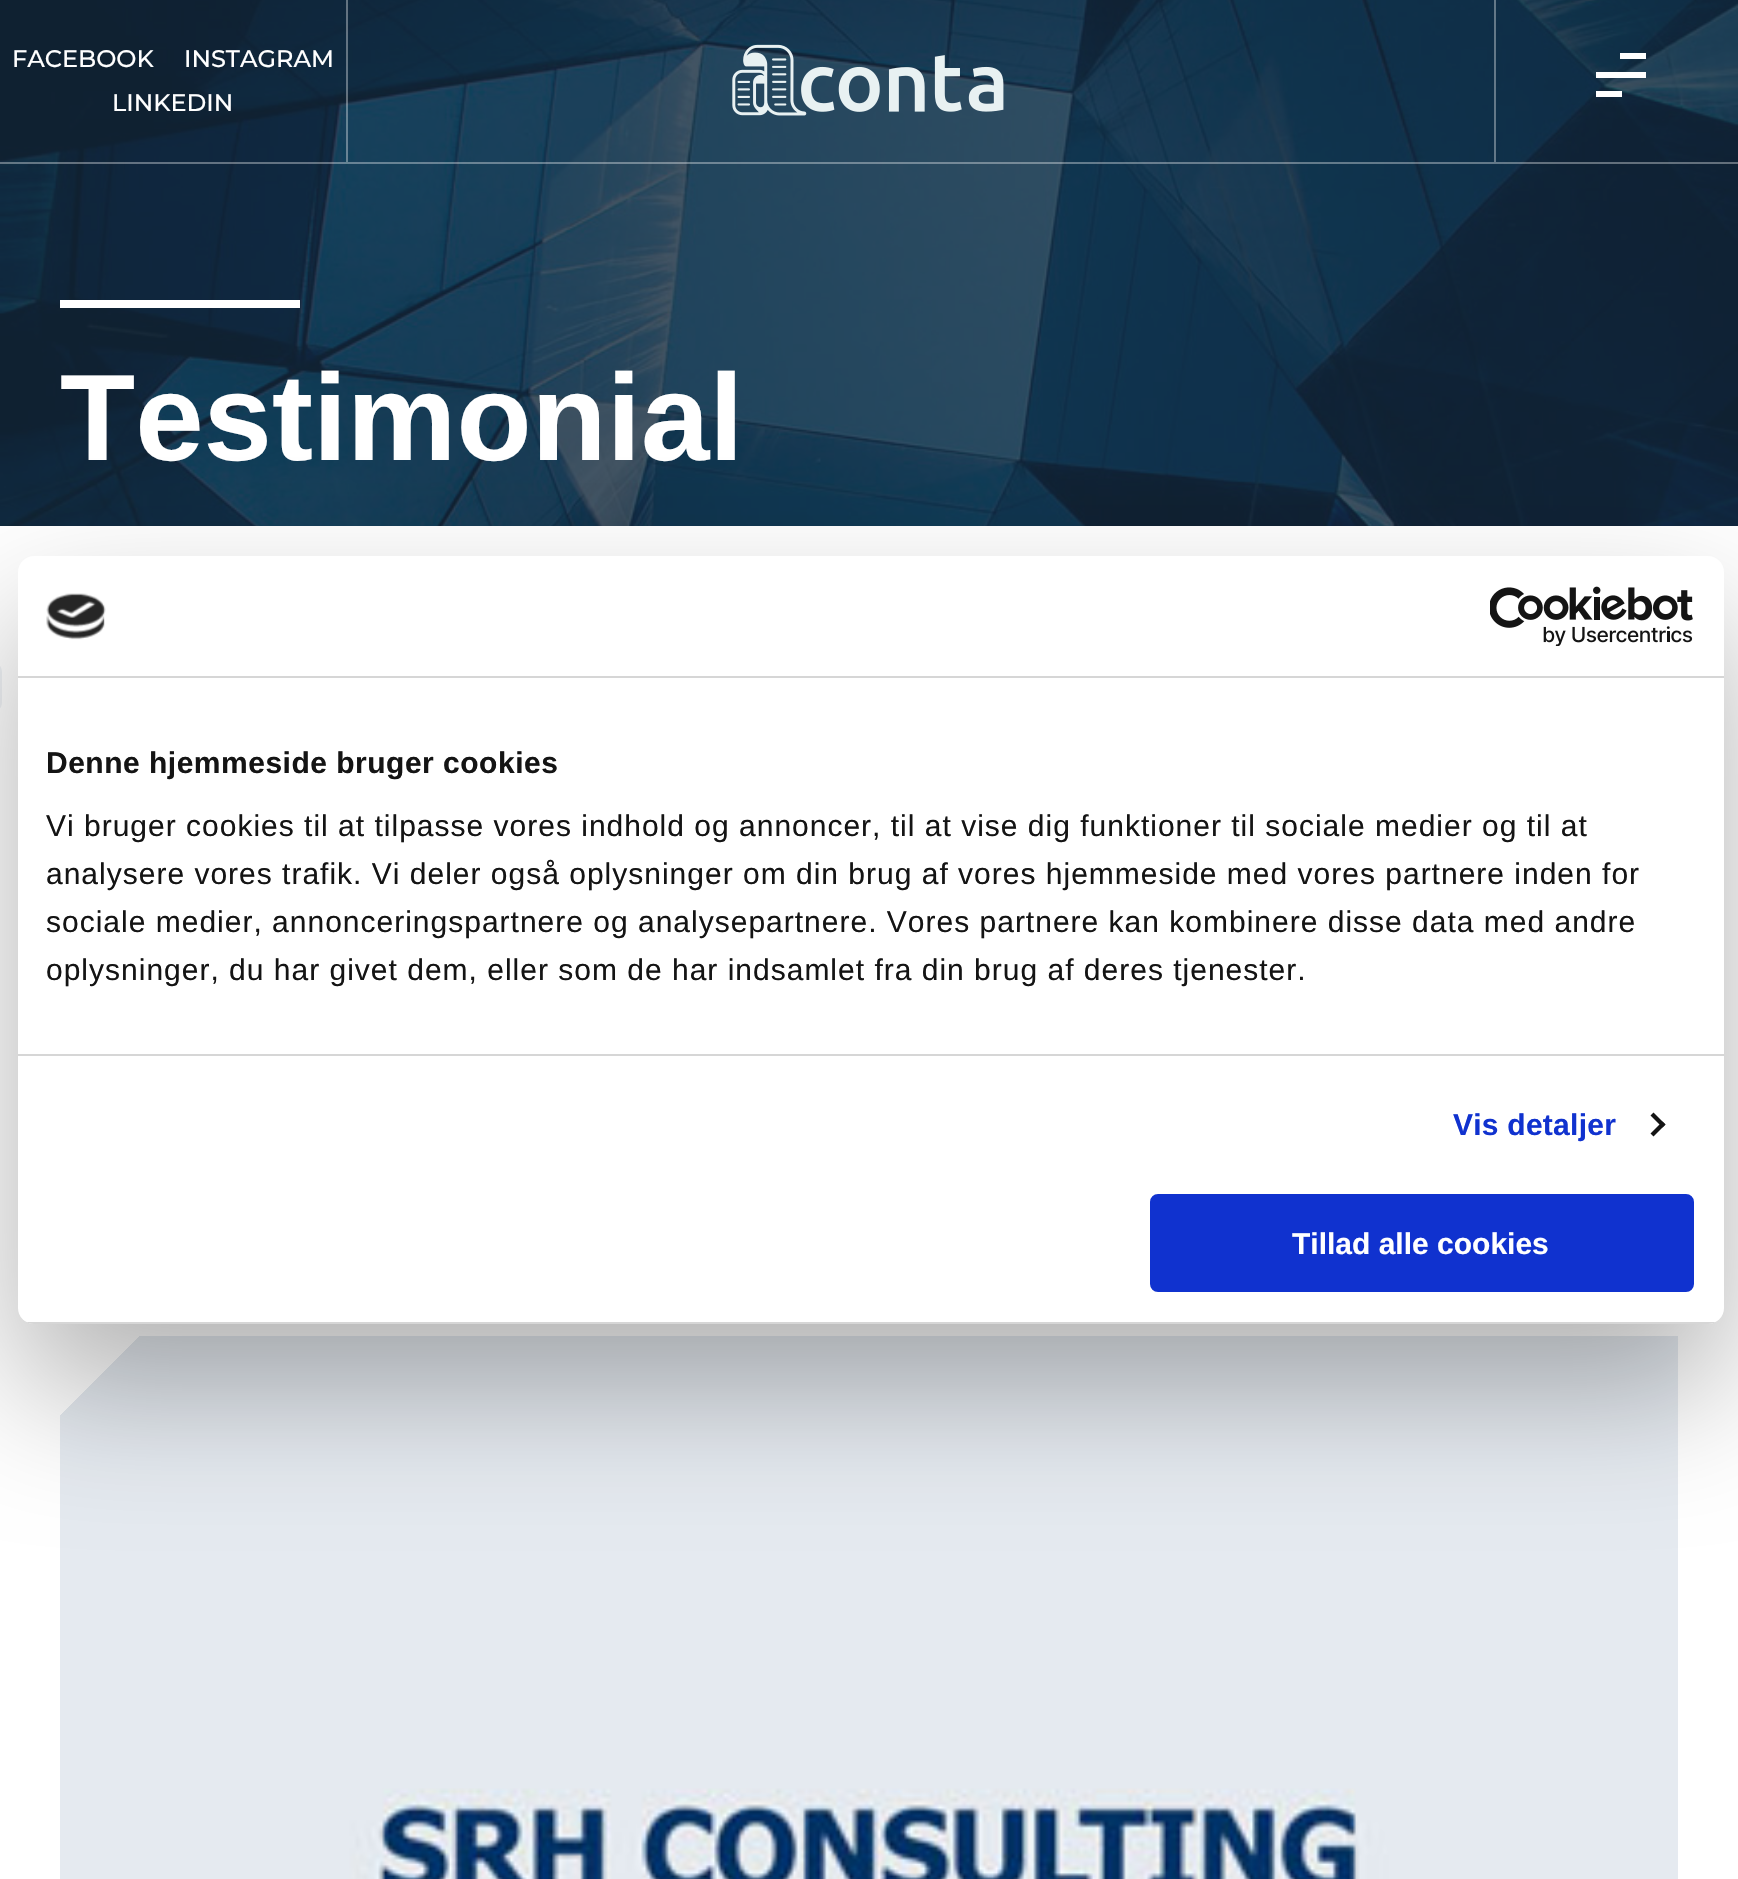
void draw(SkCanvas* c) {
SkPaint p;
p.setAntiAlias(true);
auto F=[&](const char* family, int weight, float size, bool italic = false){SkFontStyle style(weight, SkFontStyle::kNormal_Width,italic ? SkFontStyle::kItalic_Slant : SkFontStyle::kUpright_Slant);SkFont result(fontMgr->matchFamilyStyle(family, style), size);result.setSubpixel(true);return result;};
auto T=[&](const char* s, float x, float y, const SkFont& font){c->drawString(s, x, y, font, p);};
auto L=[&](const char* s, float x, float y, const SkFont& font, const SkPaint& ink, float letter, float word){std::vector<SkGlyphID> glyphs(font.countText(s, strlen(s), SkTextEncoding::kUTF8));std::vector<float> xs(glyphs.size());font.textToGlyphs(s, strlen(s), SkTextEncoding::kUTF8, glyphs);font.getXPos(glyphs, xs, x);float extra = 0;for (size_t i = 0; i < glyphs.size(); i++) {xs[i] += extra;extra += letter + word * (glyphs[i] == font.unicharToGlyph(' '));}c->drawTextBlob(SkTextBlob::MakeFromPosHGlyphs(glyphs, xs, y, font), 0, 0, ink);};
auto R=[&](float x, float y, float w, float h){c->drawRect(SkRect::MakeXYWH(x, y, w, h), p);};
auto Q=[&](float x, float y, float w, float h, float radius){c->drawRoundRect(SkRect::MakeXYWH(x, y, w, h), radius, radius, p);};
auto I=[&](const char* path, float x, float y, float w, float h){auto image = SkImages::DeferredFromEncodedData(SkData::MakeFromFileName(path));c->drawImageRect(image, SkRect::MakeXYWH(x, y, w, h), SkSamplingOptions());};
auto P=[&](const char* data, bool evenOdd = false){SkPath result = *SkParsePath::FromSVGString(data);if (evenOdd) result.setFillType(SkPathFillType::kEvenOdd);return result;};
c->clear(0xffffffff);
I("2.png",0,0,1738,526);
p.setColor(0x59ffffff);
R(0,162,1738,2);
R(346,0,2,162);
auto f1 = F("Montserrat",500,24);
p.setColor(0xffffffff);
T("FACEBOOK",12,67,f1);
T("INSTAGRAM",184,67,f1);
T("LINKEDIN",112,111,f1);
I("1.png",732,44,272,72);
p.setColor(0xff637888);
R(1494,0,2,162);
p.setColor(0xffffffff);
R(1596,91,26,6);
R(1620,53,26,6);
R(1596,72,50,6);
R(60,300,240,8);
auto f2 = F("Liberation Sans",700,123);
T("Testimonial",60,460,f2);
I("3.png",0,666,2,42);
I("4.png",60,1336,1618,543);
{
const SkColor colors[] = {0xffe5eaf0,0xffffffff};
const float stops[] = {.5,.5};
const SkPoint ends[] = {{140,1416}, {60,1336}};
p.setShader(SkGradientShader::MakeLinear(ends, colors, stops, 2, SkTileMode::kClamp));
p.setAlpha(255);
}
R(60,1336,80,80);
p.setShader(nullptr);
p.setColor(0x4d000000);
p.setMaskFilter(SkMaskFilter::MakeBlur(kNormal_SkBlurStyle, 68));
c->drawRoundRect(SkRect::MakeXYWH(18,620,1706,768),16,16,p);
p.setMaskFilter(nullptr);
p.setColor(0xffffffff);
Q(18,556,1706,768,16);
p.setColor(0xffd6d6d6);
R(18,676,1706,2);
I("5.png",46,593,60,47);
I("6.png",1490,586,203,60);
R(18,1054,1706,2);
auto f3 = F("Liberation Sans",700,30);
p.setColor(0xff141414);
L("Denne hjemmeside bruger cookies",46,773,f3,p,.5,0);
auto f4 = F("Liberation Sans",400,30);
L("Vi bruger cookies til at tilpasse vores indhold og annoncer, til at vise dig funktioner til sociale medier og til at",46,836,f4,p,1,0);
L("analysere vores trafik. Vi deler også oplysninger om din brug af vores hjemmeside med vores partnere inden for",46,884,f4,p,1,0);
L("sociale medier, annonceringspartnere og analysepartnere. Vores partnere kan kombinere disse data med andre",46,932,f4,p,1,0);
L("oplysninger, du har givet dem, eller som de har indsamlet fra din brug af deres tjenester.",46,980,f4,p,1,0);
p.setColor(0xff1032cf);
L("Vis detaljer",1453,1135,f3,p,.25,0);
p.setColor(0xff141414);
c->drawPath(P("M1653.5 1112.5l12 12l-3 3l-12-12z"),p);
c->drawPath(P("M1662.5 1121.5l3 3l-12 12l-3-3z"),p);
c->save();
c->clipPath(P("M34 556h1674c9 0 16 7 16 16v736c0 9-7 16-16 16h-1674c-9 0-16-7-16-16v-736c0-9 7-16 16-16z"),true);
p.setColor(0xffd6d6d6);
R(18,1322,1706,2);
c->restore();
p.setColor(0xff1032cf);
c->drawRoundRect(SkRect::MakeXYWH(1152,1196,540,94),6,6,p);
p.setStroke(true);
p.setStrokeWidth(4);
c->drawRoundRect(SkRect::MakeXYWH(1152,1196,540,94),6,6,p);
p.setStroke(false);
p.setColor(0xffffffff);
T("Tillad alle cookies",1292,1254,f3);
}
